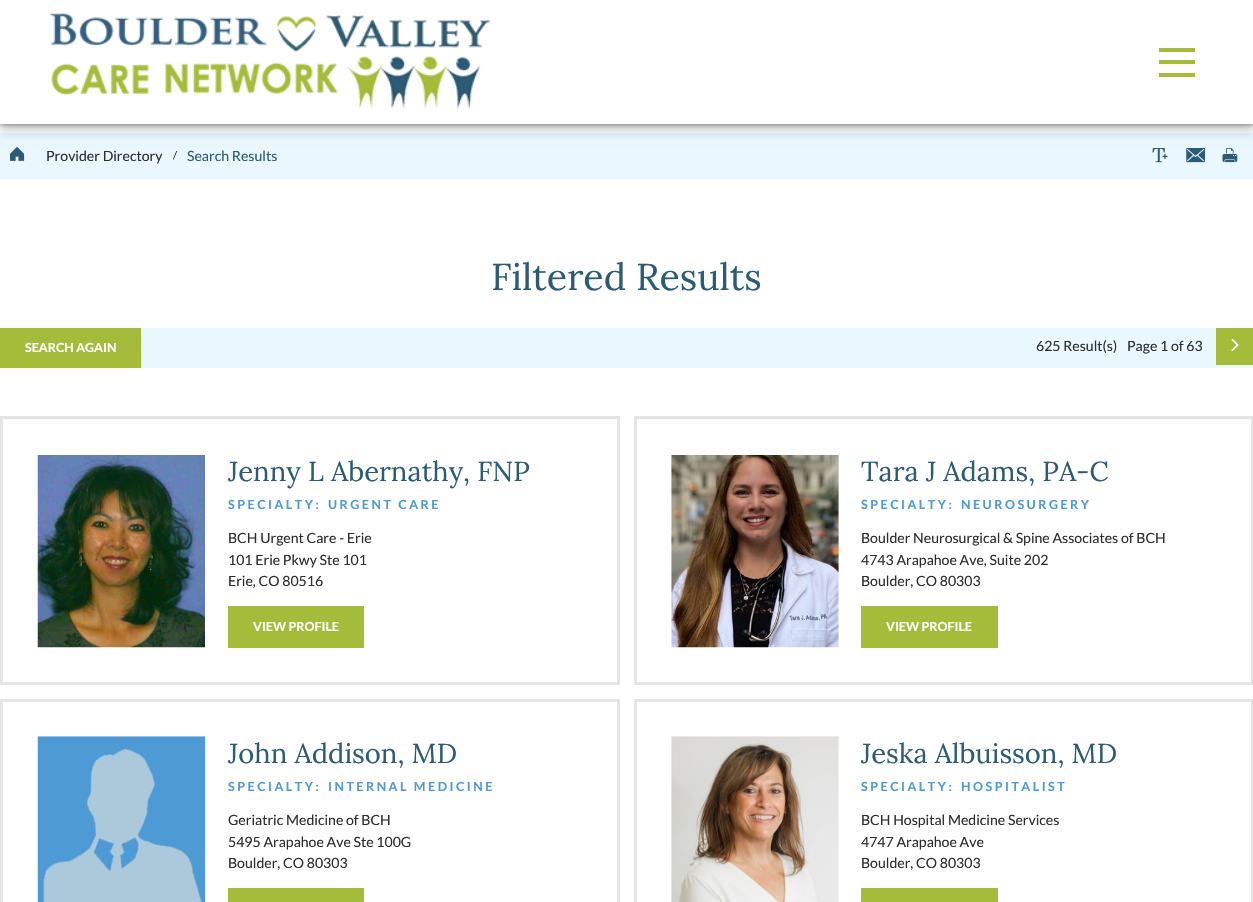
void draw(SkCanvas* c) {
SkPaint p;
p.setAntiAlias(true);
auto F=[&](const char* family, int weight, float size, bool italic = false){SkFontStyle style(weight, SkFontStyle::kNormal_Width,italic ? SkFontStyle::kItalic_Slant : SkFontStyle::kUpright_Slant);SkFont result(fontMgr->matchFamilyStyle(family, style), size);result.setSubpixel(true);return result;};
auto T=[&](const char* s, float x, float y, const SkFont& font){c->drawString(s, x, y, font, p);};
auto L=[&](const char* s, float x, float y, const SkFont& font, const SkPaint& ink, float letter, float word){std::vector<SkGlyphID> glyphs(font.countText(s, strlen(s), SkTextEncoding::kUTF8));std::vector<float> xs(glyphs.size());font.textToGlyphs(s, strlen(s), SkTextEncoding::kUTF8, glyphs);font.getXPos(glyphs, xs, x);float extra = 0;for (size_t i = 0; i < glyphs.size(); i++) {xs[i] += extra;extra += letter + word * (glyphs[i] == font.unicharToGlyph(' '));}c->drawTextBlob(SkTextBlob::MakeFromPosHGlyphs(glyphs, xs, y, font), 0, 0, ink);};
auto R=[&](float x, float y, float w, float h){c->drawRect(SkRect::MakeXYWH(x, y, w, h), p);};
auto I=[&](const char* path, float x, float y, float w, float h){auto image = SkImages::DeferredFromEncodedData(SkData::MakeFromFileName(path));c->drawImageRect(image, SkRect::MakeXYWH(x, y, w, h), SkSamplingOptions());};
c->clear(0xffffffff);
p.setColor(0xffeaf7ff);
R(0,133,1253,46);
I("2.png",10,146,15,15);
I("3.png",1152,148,16,15);
I("4.png",1186,148,20,15);
I("5.png",1222,148,16,15);
p.setColor(0x24000000);
p.setMaskFilter(SkMaskFilter::MakeBlur(kNormal_SkBlurStyle, 5));
c->drawRect(SkRect::MakeXYWH(0,9,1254,124),p);
p.setMaskFilter(nullptr);
p.setColor(0x94000000);
p.setMaskFilter(SkMaskFilter::MakeBlur(kNormal_SkBlurStyle, 3));
c->drawRect(SkRect::MakeXYWH(0,0,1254,124),p);
p.setMaskFilter(nullptr);
p.setColor(0xffffffff);
R(0,0,1253,124);
I("1.png",50,13,441,96);
p.setColor(0xffa5bc3b);
R(1159,48,36,4);
R(1159,60,36,4);
R(1159,73,36,4);
auto f1 = F("Lato",400,14.1);
p.setColor(0xff2d2d2d);
T("Provider Directory",46,161,f1);
auto f2 = F("Lato",400,11);
T("/",173,159,f2);
p.setColor(0xff2c5b75);
T("Search Results",187,161,f1);
auto f3 = F("Lora",400,37.5);
T("Filtered Results",491,290,f3);
p.setColor(0xffeaf7ff);
R(141,328,1112,40);
p.setColor(0xffa5bc3b);
R(0,328,141,40);
auto f4 = F("Lato",700,12.5);
p.setColor(0xffffffff);
T("SEARCH AGAIN",25,352,f4);
p.setColor(0xff2d2d2d);
T("625 Result(s)",1036,351,f1);
T("Page 1 of 63",1127,351,f1);
p.setColor(0xffa5bc3b);
R(1216,328,37,37);
I("6.png",1231,338,8,14);
p.setStroke(true);
p.setStrokeWidth(3);
p.setColor(0xffe5e5e5);
c->drawRect(SkRect::MakeXYWH(1.5,417.5,617,266),p);
I("7.png",37,455,168,193);
auto f5 = F("Lora",400,27.4);
p.setStroke(false);
p.setColor(0xff2c5b75);
T("Jenny L Abernathy, FNP",228,481,f5);
p.setColor(0xff4e9ad5);
L("SPECIALTY:",228,509,f4,p,2.5,0);
L("URGENT CARE",328,509,f4,p,2.5,0);
p.setColor(0xff2d2d2d);
T("BCH Urgent Care - Erie",228,543,f1);
T("101 Erie Pkwy Ste 101",228,565,f1);
T("Erie, CO 80516",228,586,f1);
p.setColor(0xffa5bc3b);
R(228,606,136,42);
p.setColor(0xffffffff);
T("VIEW PROFILE",253,631,f4);
p.setStroke(true);
p.setColor(0xffe5e5e5);
c->drawRect(SkRect::MakeXYWH(635.5,417.5,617,266),p);
I("8.png",671,455,168,193);
p.setStroke(false);
p.setColor(0xff2c5b75);
T("Tara J Adams, PA-C",861,481,f5);
p.setColor(0xff4e9ad5);
L("SPECIALTY:",861,509,f4,p,2.5,0);
L("NEUROSURGERY",961,509,f4,p,2.5,0);
p.setColor(0xff2d2d2d);
T("Boulder Neurosurgical & Spine Associates of BCH",861,543,f1);
T("4743 Arapahoe Ave, Suite 202",861,565,f1);
T("Boulder, CO 80303",861,586,f1);
p.setColor(0xffa5bc3b);
R(861,606,137,42);
p.setColor(0xffffffff);
T("VIEW PROFILE",886,631,f4);
p.setStroke(true);
p.setColor(0xffe5e5e5);
c->drawRect(SkRect::MakeXYWH(1.5,700.5,617,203),p);
I("9.png",37,736,168,166);
p.setStroke(false);
p.setColor(0xff2c5b75);
T("John Addison, MD",228,763,f5);
p.setColor(0xff4e9ad5);
L("SPECIALTY:",228,791,f4,p,2.5,0);
L("INTERNAL MEDICINE",328,791,f4,p,2.5,0);
p.setColor(0xff2d2d2d);
T("Geriatric Medicine of BCH",228,825,f1);
T("5495 Arapahoe Ave Ste 100G",228,847,f1);
T("Boulder, CO 80303",228,868,f1);
p.setColor(0xffa5bc3b);
R(228,888,136,14);
p.setStroke(true);
p.setColor(0xffe5e5e5);
c->drawRect(SkRect::MakeXYWH(635.5,700.5,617,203),p);
I("10.png",671,736,168,166);
p.setStroke(false);
p.setColor(0xff2c5b75);
T("Jeska Albuisson, MD",861,763,f5);
p.setColor(0xff4e9ad5);
L("SPECIALTY:",861,791,f4,p,2.5,0);
L("HOSPITALIST",961,791,f4,p,2.5,0);
p.setColor(0xff2d2d2d);
T("BCH Hospital Medicine Services",861,825,f1);
T("4747 Arapahoe Ave",861,847,f1);
T("Boulder, CO 80303",861,868,f1);
p.setColor(0xffa5bc3b);
R(861,888,137,14);
}
